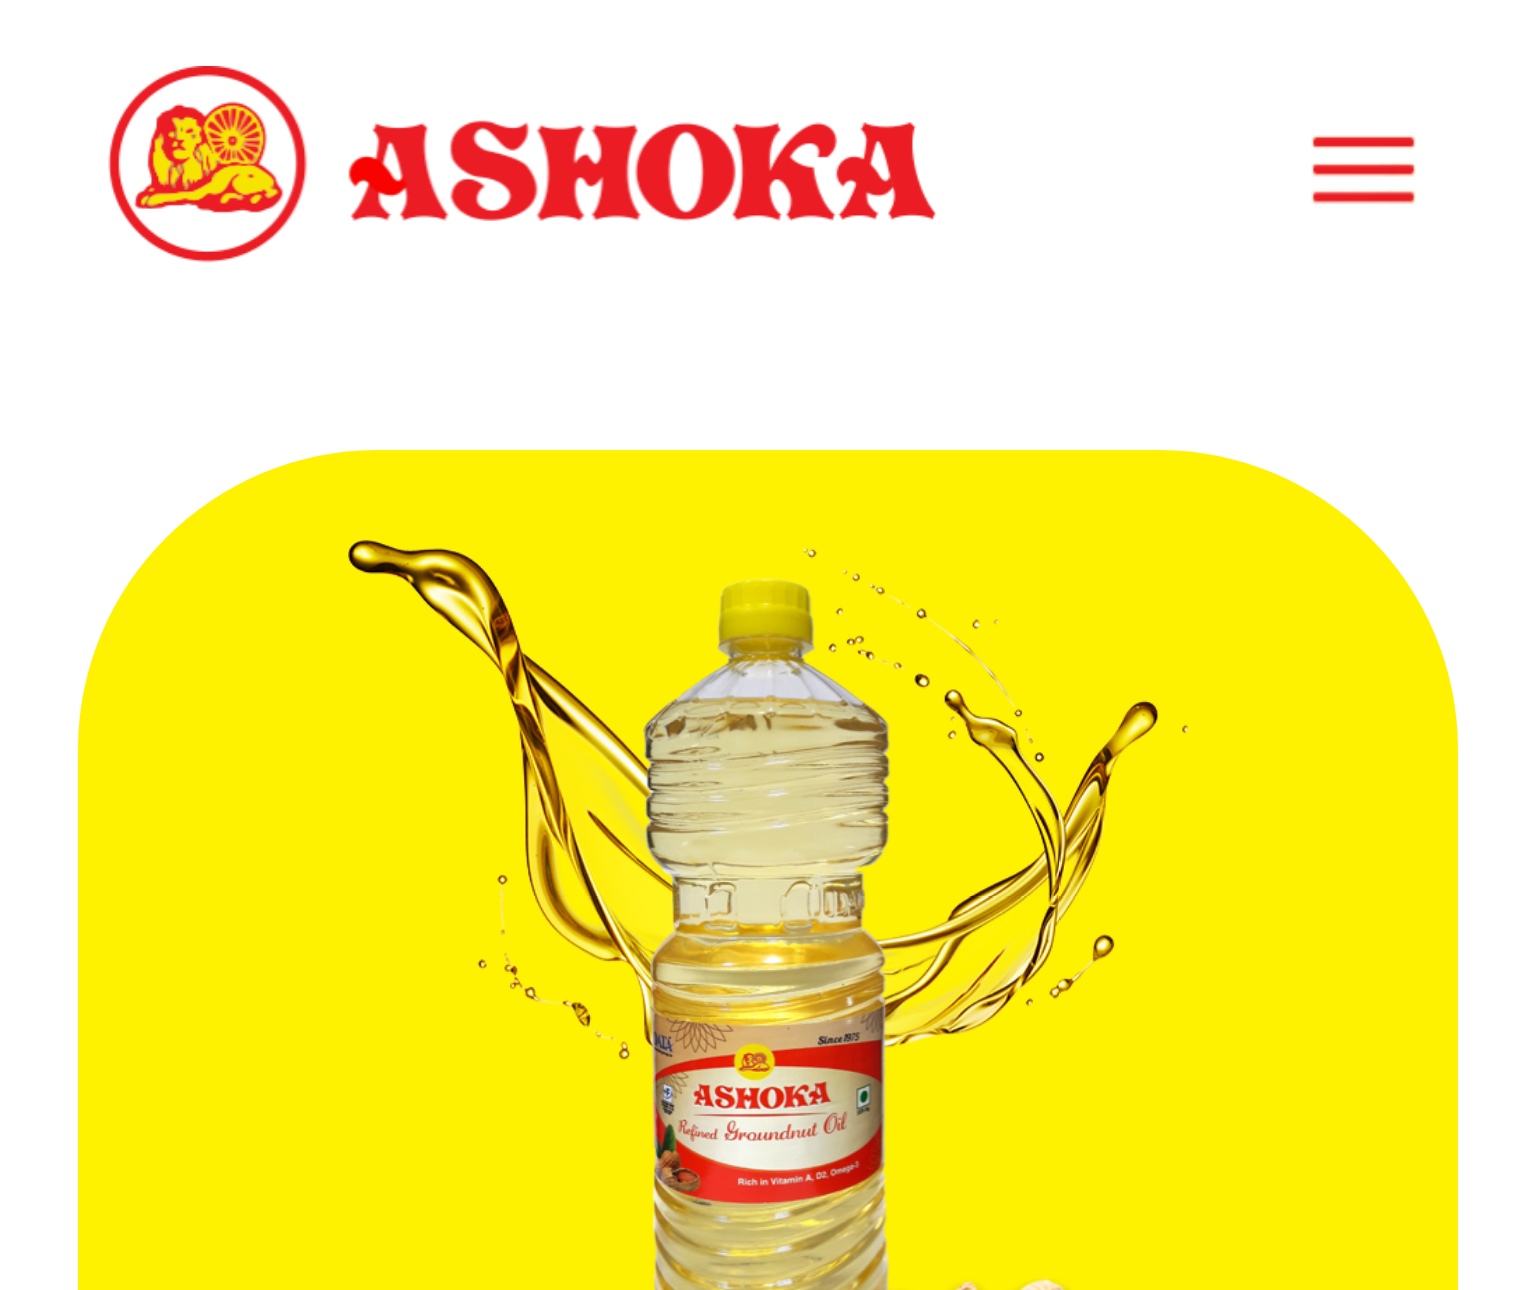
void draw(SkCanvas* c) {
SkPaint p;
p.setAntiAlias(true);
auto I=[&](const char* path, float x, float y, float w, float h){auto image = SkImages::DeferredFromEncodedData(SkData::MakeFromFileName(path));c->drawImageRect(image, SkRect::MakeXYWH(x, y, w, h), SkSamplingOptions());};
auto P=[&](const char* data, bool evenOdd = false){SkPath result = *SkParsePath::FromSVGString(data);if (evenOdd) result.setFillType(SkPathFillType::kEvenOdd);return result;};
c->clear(0xffffffff);
I("1.png",108,66,829,197);
I("2.png",1311,135,105,69);
p.setColor(0xfffff200);
c->drawPath(P("M378 450h780c165.5 0 300 134.5 300 300v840h-1380v-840c0-165.5 134.5-300 300-300z"),p);
I("3.png",348,540,840,521);
I("5.png",888,1278,184,12);
I("4.png",643,578,248,712);
}
